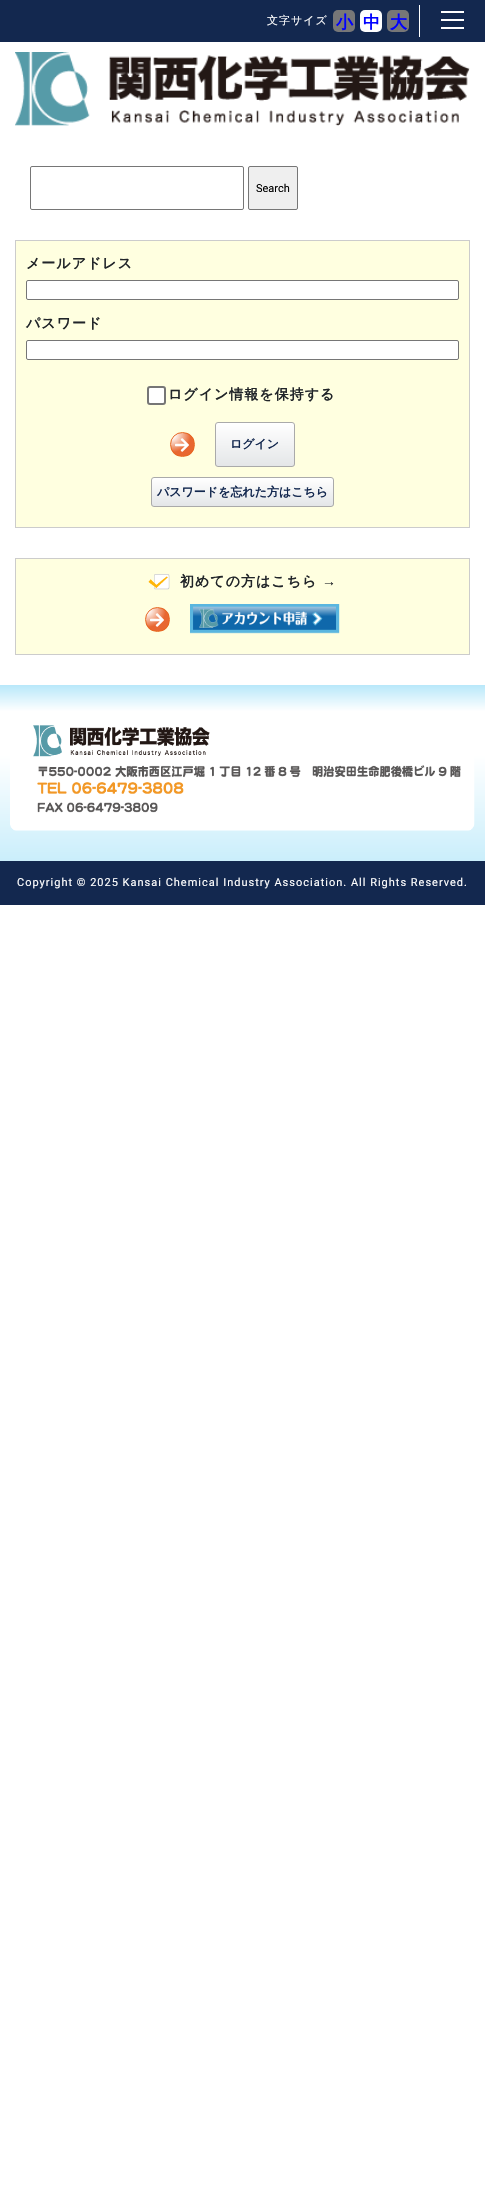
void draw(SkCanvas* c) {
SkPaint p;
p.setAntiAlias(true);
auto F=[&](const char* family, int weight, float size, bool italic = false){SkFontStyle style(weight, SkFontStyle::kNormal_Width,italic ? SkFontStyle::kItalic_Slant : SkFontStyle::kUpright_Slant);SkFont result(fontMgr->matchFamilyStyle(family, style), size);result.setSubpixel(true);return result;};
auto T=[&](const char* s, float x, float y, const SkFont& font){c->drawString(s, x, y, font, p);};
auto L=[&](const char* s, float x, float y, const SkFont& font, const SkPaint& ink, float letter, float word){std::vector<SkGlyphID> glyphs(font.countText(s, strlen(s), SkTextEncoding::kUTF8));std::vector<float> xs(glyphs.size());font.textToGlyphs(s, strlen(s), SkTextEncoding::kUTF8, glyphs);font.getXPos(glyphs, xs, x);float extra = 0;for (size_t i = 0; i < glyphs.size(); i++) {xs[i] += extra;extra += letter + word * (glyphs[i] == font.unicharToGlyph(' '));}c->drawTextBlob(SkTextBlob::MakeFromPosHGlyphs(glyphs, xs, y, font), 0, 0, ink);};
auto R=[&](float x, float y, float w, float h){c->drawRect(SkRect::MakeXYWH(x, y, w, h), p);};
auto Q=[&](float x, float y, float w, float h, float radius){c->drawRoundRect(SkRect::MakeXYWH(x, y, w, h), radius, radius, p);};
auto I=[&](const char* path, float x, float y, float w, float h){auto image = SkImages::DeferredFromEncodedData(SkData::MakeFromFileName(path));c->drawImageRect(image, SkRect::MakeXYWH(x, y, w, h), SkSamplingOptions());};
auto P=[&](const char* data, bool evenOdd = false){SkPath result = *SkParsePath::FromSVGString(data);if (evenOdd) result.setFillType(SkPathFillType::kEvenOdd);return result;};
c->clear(0xffffffff);
p.setColor(0xff13284f);
R(0,0,485,42);
p.setColor(0xfffefefe);
R(419,5,1,32);
auto f1 = F("WenQuanYi Zen Hei",500,11);
p.setColor(0xffffffff);
L("文字サイズ",267,24,f1,p,1,0);
p.setColor(0xff777777);
Q(333,10,22,22,5);
auto f2 = F("WenQuanYi Zen Hei",700,17);
p.setColor(0xff0000ff);
L("小",336,28,f2,p,1,0);
p.setColor(0xfffefefe);
Q(360,10,22,22,5);
p.setColor(0xff0000ff);
L("中",363,28,f2,p,1,0);
p.setColor(0xff777777);
Q(387,10,22,22,5);
p.setColor(0xff0000ff);
L("大",390,28,f2,p,1,0);
p.setColor(0xffffffff);
R(441,11,23,2);
R(441,19,23,2);
R(441,27,23,2);
I("1.png",15,52,455,74);
p.setStroke(true);
p.setStrokeWidth(1);
p.setColor(0xff767676);
c->drawRoundRect(SkRect::MakeXYWH(30.5,166.5,213,43),1.5,1.5,p);
p.setStroke(false);
p.setColor(0xffefefef);
c->drawRoundRect(SkRect::MakeXYWH(248.5,166.5,49,43),1.5,1.5,p);
p.setStroke(true);
p.setColor(0xff767676);
c->drawRoundRect(SkRect::MakeXYWH(248.5,166.5,49,43),1.5,1.5,p);
auto f3 = F("Roboto",400,11);
p.setStroke(false);
p.setColor(0xff000000);
T("Search",256,192,f3);
p.setColor(0xffffffe0);
c->drawRect(SkRect::MakeXYWH(15.5,240.5,454,287),p);
p.setStroke(true);
p.setColor(0xffcccccc);
c->drawRect(SkRect::MakeXYWH(15.5,240.5,454,287),p);
auto f4 = F("WenQuanYi Zen Hei",700,14);
p.setStroke(false);
p.setColor(0xff212529);
L("メールアドレス",26,268,f4,p,1,0);
p.setColor(0xffffffff);
c->drawRoundRect(SkRect::MakeXYWH(26.5,280.5,432,19),1.5,1.5,p);
p.setStroke(true);
p.setColor(0xff767676);
c->drawRoundRect(SkRect::MakeXYWH(26.5,280.5,432,19),1.5,1.5,p);
p.setStroke(false);
p.setColor(0xff212529);
L("パスワード",26,328,f4,p,1,0);
p.setColor(0xffffffff);
c->drawRoundRect(SkRect::MakeXYWH(26.5,340.5,432,19),1.5,1.5,p);
p.setStroke(true);
p.setColor(0xff767676);
c->drawRoundRect(SkRect::MakeXYWH(26.5,340.5,432,19),1.5,1.5,p);
p.setStroke(false);
p.setColor(0xffffffff);
c->drawRoundRect(SkRect::MakeXYWH(148,387,17,17),2,2,p);
p.setStroke(true);
p.setStrokeWidth(2);
p.setColor(0xff767676);
c->drawRoundRect(SkRect::MakeXYWH(148,387,17,17),2,2,p);
p.setStroke(false);
p.setColor(0xff212529);
L("ログイン情報を保持する",168,399,f4,p,1,0);
c->save();
c->clipPath(P("M182.5 432c7 0 12.5 5.5 12.5 12.5c0 7-5.5 12.5-12.5 12.5c-7 0-12.5-5.5-12.5-12.5c0-7 5.5-12.5 12.5-12.5z"),true);
{
const SkColor colors[] = {0xffffffff,0xffe86731};
const float stops[] = {.1,.6};
SkMatrix m = SkMatrix::Translate(171,435).preScale(33,29);
p.setShader(SkGradientShader::MakeRadial({0, 0}, 1, colors, stops, 2, SkTileMode::kClamp, 0, &m));
p.setAlpha(255);
}
R(171,433,23,23);
c->restore();
p.setStroke(true);
p.setStrokeWidth(1);
p.setShader(nullptr);
p.setColor(0xffe8671f);
c->drawCircle(182.5,444.5,12,p);
I("2.png",175,438,14,14);
c->save();
c->clipPath(P("M218 422h74c1.5 0 3 1.5 3 3v39c0 1.5-1.5 3-3 3h-74c-1.5 0-3-1.5-3-3v-39c0-1.5 1.5-3 3-3z"),true);
p.setStroke(false);
{
const SkColor colors[] = {0xffffffff,0xffe4e6e8};
const float stops[] = {0,1};
const SkPoint ends[] = {{255,423}, {255,466}};
p.setShader(SkGradientShader::MakeLinear(ends, colors, stops, 2, SkTileMode::kClamp));
p.setAlpha(255);
}
R(215,423,80,43);
c->restore();
p.setStroke(true);
p.setShader(nullptr);
p.setColor(0xffaaaaaa);
c->drawRoundRect(SkRect::MakeXYWH(215.5,422.5,79,44),2.5,2.5,p);
auto f5 = F("WenQuanYi Zen Hei",700,12);
p.setStroke(false);
p.setColor(0xff13284f);
T("ログイン",230,448,f5);
c->save();
c->clipPath(P("M154 477h177c1.5 0 3 1.5 3 3v24c0 1.5-1.5 3-3 3h-177c-1.5 0-3-1.5-3-3v-24c0-1.5 1.5-3 3-3z"),true);
{
const SkColor colors[] = {0xffffffff,0xffe4e6e8};
const float stops[] = {0,1};
const SkPoint ends[] = {{243,478}, {243,506}};
p.setShader(SkGradientShader::MakeLinear(ends, colors, stops, 2, SkTileMode::kClamp));
p.setAlpha(255);
}
R(151,478,183,28);
c->restore();
p.setStroke(true);
p.setShader(nullptr);
p.setColor(0xffaaaaaa);
c->drawRoundRect(SkRect::MakeXYWH(151.5,477.5,182,29),2.5,2.5,p);
p.setStroke(false);
p.setColor(0xff13284f);
T("パスワードを忘れた方はこちら",157,496,f5);
p.setColor(0xffffffe0);
c->drawRect(SkRect::MakeXYWH(15.5,558.5,454,96),p);
p.setStroke(true);
p.setColor(0xffcccccc);
c->drawRect(SkRect::MakeXYWH(15.5,558.5,454,96),p);
I("3.png",148,574,22,16);
p.setStroke(false);
p.setColor(0xff212529);
L("初めての方はこちら",180,586,f4,p,1,0);
auto f6 = F("Liberation Sans",700,14);
L("→",322,586,f6,p,1,0);
c->save();
c->clipPath(P("M157.5 607c7 0 12.5 5.5 12.5 12.5c0 7-5.5 12.5-12.5 12.5c-7 0-12.5-5.5-12.5-12.5c0-7 5.5-12.5 12.5-12.5z"),true);
{
const SkColor colors[] = {0xffffffff,0xffe86731};
const float stops[] = {.1,.6};
SkMatrix m = SkMatrix::Translate(146,610).preScale(33,29);
p.setShader(SkGradientShader::MakeRadial({0, 0}, 1, colors, stops, 2, SkTileMode::kClamp, 0, &m));
p.setAlpha(255);
}
R(146,608,23,23);
c->restore();
p.setStroke(true);
p.setShader(nullptr);
p.setColor(0xffe8671f);
c->drawCircle(157.5,619.5,12,p);
I("2.png",150,613,14,14);
I("4.png",190,604,150,30);
p.setStroke(false);
{
const SkColor colors[] = {0xffcaeefb,0xffffffff,0xffffffff,0xffb8e8fa};
const float stops[] = {0,.6,.85,1};
const SkPoint ends[] = {{243,861}, {243,685}};
p.setShader(SkGradientShader::MakeLinear(ends, colors, stops, 4, SkTileMode::kClamp));
p.setAlpha(255);
}
R(0,685,485,176);
I("5.png",10,725,465,106);
p.setShader(nullptr);
p.setColor(0xff13284f);
R(0,861,485,44);
p.setColor(0xffffffff);
L("Copyright © 2025 Kansai Chemical Industry Association. All Rights Reserved.",17,886,f3,p,1,0);
}
